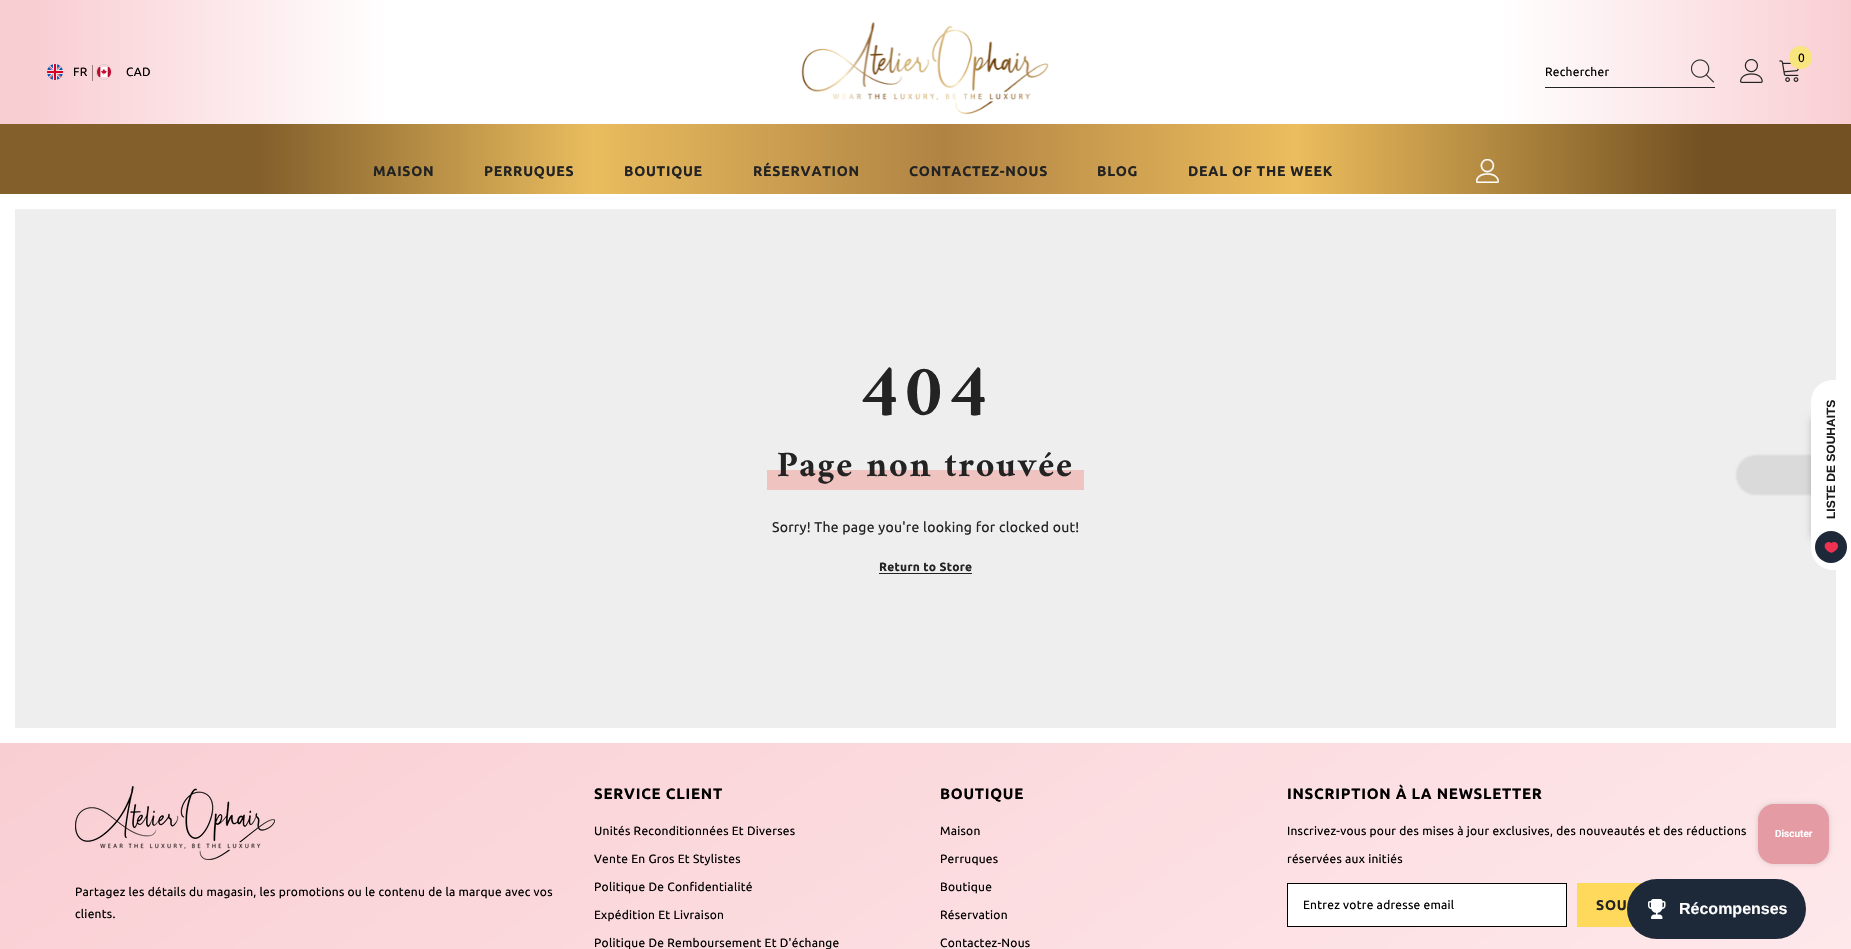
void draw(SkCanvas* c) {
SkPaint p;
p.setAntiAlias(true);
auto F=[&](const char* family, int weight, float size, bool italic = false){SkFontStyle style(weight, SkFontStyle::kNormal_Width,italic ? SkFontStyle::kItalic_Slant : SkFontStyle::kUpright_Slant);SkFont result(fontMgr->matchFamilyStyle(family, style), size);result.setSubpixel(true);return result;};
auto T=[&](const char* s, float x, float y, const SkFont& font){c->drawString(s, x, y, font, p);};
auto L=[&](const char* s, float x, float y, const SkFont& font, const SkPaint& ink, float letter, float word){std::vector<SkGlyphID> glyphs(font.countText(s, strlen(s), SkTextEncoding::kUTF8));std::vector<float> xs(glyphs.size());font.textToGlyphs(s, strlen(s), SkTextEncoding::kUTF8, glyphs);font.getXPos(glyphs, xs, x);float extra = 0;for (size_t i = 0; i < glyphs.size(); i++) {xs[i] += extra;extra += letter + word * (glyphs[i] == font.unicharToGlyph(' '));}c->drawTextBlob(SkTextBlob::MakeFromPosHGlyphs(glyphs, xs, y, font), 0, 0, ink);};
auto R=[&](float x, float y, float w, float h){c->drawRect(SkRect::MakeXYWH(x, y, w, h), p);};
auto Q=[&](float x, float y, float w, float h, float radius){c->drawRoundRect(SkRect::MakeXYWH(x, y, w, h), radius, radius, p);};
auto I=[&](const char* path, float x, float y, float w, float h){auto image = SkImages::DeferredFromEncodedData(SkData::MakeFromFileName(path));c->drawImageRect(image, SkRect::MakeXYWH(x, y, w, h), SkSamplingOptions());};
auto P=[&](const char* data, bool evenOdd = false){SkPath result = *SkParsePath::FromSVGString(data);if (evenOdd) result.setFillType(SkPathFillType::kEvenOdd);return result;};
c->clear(0xffffffff);
{
const SkColor colors[] = {0xfff9ced3,0xffffffff,0xffffffff,0xfff9ced3};
const float stops[] = {.02,.21,.81,1};
const SkPoint ends[] = {{0,62}, {1851,62}};
p.setShader(SkGradientShader::MakeLinear(ends, colors, stops, 4, SkTileMode::kClamp));
p.setAlpha(255);
}
R(0,0,1851,124);
I("1.png",47,64,16,16);
auto f1 = F("Ubuntu",400,12);
p.setShader(nullptr);
p.setColor(0xff000000);
L("FR",73,76,f1,p,.25,0);
p.setColor(0xff968083);
R(92,65,1,16);
p.setStroke(true);
p.setStrokeWidth(1);
p.setColor(0xffe5c8cc);
c->drawCircle(104,72,7.5,p);
I("2.png",97,66,14,11);
p.setStroke(false);
p.setColor(0xff000000);
L("CAD",126,76,f1,p,.25,0);
I("3.png",801,22,248,93);
I("4.png",1779,60,20,22);
p.setColor(0xfff9e57d);
c->drawCircle(1800.5,57.5,11.5,p);
p.setColor(0xff000000);
T("0",1798,62,f1);
I("5.png",1740,59,23,24);
p.setColor(0xff232323);
R(1545,87,170,1);
p.setColor(0xff000000);
L("Rechercher",1545,76,f1,p,.25,0);
I("6.png",1691,59,23,24);
{
const SkColor colors[] = {0xff835f2b,0xffe9bc5e,0xffb08344,0xffecbd5d,0xff735122};
const float stops[] = {.14,.32,.51,.7,.92};
const SkPoint ends[] = {{0,136}, {1851,136}};
p.setShader(SkGradientShader::MakeLinear(ends, colors, stops, 5, SkTileMode::kClamp));
p.setAlpha(255);
}
R(0,124,1851,24);
{
const SkColor colors[] = {0xff835f2b,0xffe9bc5e,0xffb08344,0xffecbd5d,0xff735122};
const float stops[] = {.14,.32,.51,.7,.92};
const SkPoint ends[] = {{0,171}, {1851,171}};
p.setShader(SkGradientShader::MakeLinear(ends, colors, stops, 5, SkTileMode::kClamp));
p.setAlpha(255);
}
R(0,148,1851,46);
auto f2 = F("Ubuntu",700,14);
p.setShader(nullptr);
p.setColor(0xff232323);
L("MAISON",373,176,f2,p,.75,0);
L("PERRUQUES",484,176,f2,p,.75,0);
L("BOUTIQUE",624,176,f2,p,.75,0);
L("RÉSERVATION",753,176,f2,p,.75,0);
L("CONTACTEZ-NOUS",909,176,f2,p,.75,0);
L("BLOG",1097,176,f2,p,.75,0);
L("DEAL OF THE WEEK",1188,176,f2,p,.75,0);
I("7.png",1476,159,23,24);
p.setColor(0xffeeeeee);
R(15,209,1821,519);
auto f3 = F("Amiri",700,76);
p.setColor(0xff232323);
L("404",859,415,f3,p,4,0);
p.setColor(0xffefc3c0);
R(767,470,317,20);
auto f4 = F("Amiri",700,36);
p.setColor(0xff232323);
L("Page non trouvée",777,476,f4,p,1.75,0);
auto f5 = F("Ubuntu",400,14);
L("Sorry! The page you're looking for clocked out!",772,532,f5,p,.25,0);
auto f6 = F("Ubuntu",700,12);
L("Return to Store",879,571,f6,p,.25,0);
R(879,573,93,1);
{
const SkColor colors[] = {0xfff9ced3,0xffffedef};
const float stops[] = {0,1};
const SkPoint ends[] = {{525,389}, {1326,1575}};
p.setShader(SkGradientShader::MakeLinear(ends, colors, stops, 2, SkTileMode::kClamp));
p.setAlpha(255);
}
R(0,743,1851,206);
I("8.png",75,786,200,74);
p.setShader(nullptr);
p.setColor(0xff000000);
L("Partagez les détails du magasin, les promotions ou le contenu de la marque avec vos",75,896,f1,p,.25,0);
L("clients.",75,918,f1,p,.25,0);
auto f7 = F("Ubuntu",700,15);
L("SERVICE CLIENT",594,799,f7,p,.75,0);
L("Unités Reconditionnées Et Diverses",594,835,f1,p,.25,0);
L("Vente En Gros Et Stylistes",594,863,f1,p,.25,0);
L("Politique De Confidentialité",594,891,f1,p,.25,0);
L("Expédition Et Livraison",594,919,f1,p,.25,0);
L("Politique De Remboursement Et D'échange",594,947,f1,p,.25,0);
L("BOUTIQUE",940,799,f7,p,.75,0);
L("Maison",940,835,f1,p,.25,0);
L("Perruques",940,863,f1,p,.25,0);
L("Boutique",940,891,f1,p,.25,0);
L("Réservation",940,919,f1,p,.25,0);
L("Contactez-Nous",940,947,f1,p,.25,0);
L("INSCRIPTION À LA NEWSLETTER",1287,799,f7,p,.75,0);
L("Inscrivez-vous pour des mises à jour exclusives, des nouveautés et des réductions",1287,835,f1,p,.25,0);
L("réservées aux initiés",1287,863,f1,p,.25,0);
p.setColor(0xffffffff);
c->drawRect(SkRect::MakeXYWH(1287.5,883.5,279,43),p);
p.setStroke(true);
p.setColor(0xff000000);
c->drawRect(SkRect::MakeXYWH(1287.5,883.5,279,43),p);
p.setStroke(false);
L("Entrez votre adresse email",1303,909,f1,p,.25,0);
p.setColor(0xffffd95c);
R(1577,883,65,44);
p.setColor(0xff232323);
L("SOU",1596,910,f2,p,.75,0);
p.setColor(0xffdadada);
p.setMaskFilter(SkMaskFilter::MakeBlur(kNormal_SkBlurStyle, 1));
c->drawRoundRect(SkRect::MakeXYWH(1736,455,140,40),22,22,p);
p.setMaskFilter(nullptr);
p.setColor(0x33000000);
p.setMaskFilter(SkMaskFilter::MakeBlur(kNormal_SkBlurStyle, 3.5));
c->drawRect(SkRect::MakeXYWH(1811,418,40,120),p);
p.setMaskFilter(nullptr);
p.setColor(0xffffffff);
c->drawPath(P("M1811 548v-146c0-13 10-22 22-22h18v190h-18c-12 0-22-10-22-22z"),p);
auto f8 = F("Liberation Sans",700,12);
p.setColor(0xff1a1a1a);
c->save();
c->rotate(-90,1835,519);
T("LISTE DE SOUHAITS",1835,519,f8);
c->restore();
p.setColor(0xff1d2939);
c->drawCircle(1831,547,16,p);
I("9.png",1824,542,14,11);
Q(1627,879,179,60,30);
I("10.png",1648,899,18,20);
auto f9 = F("Liberation Sans",700,16);
p.setColor(0xffffffff);
T("Récompenses",1679,914,f9);
p.setColor(0x26000000);
p.setMaskFilter(SkMaskFilter::MakeBlur(kNormal_SkBlurStyle, 2.5));
c->drawRoundRect(SkRect::MakeXYWH(1758,804,71,60),16,16,p);
p.setMaskFilter(nullptr);
p.setColor(0xffe49ba4);
Q(1758,804,71,60,16);
auto f10 = F("Roboto",600,10);
p.setColor(0xffffffff);
T("Discuter",1775,837,f10);
}
